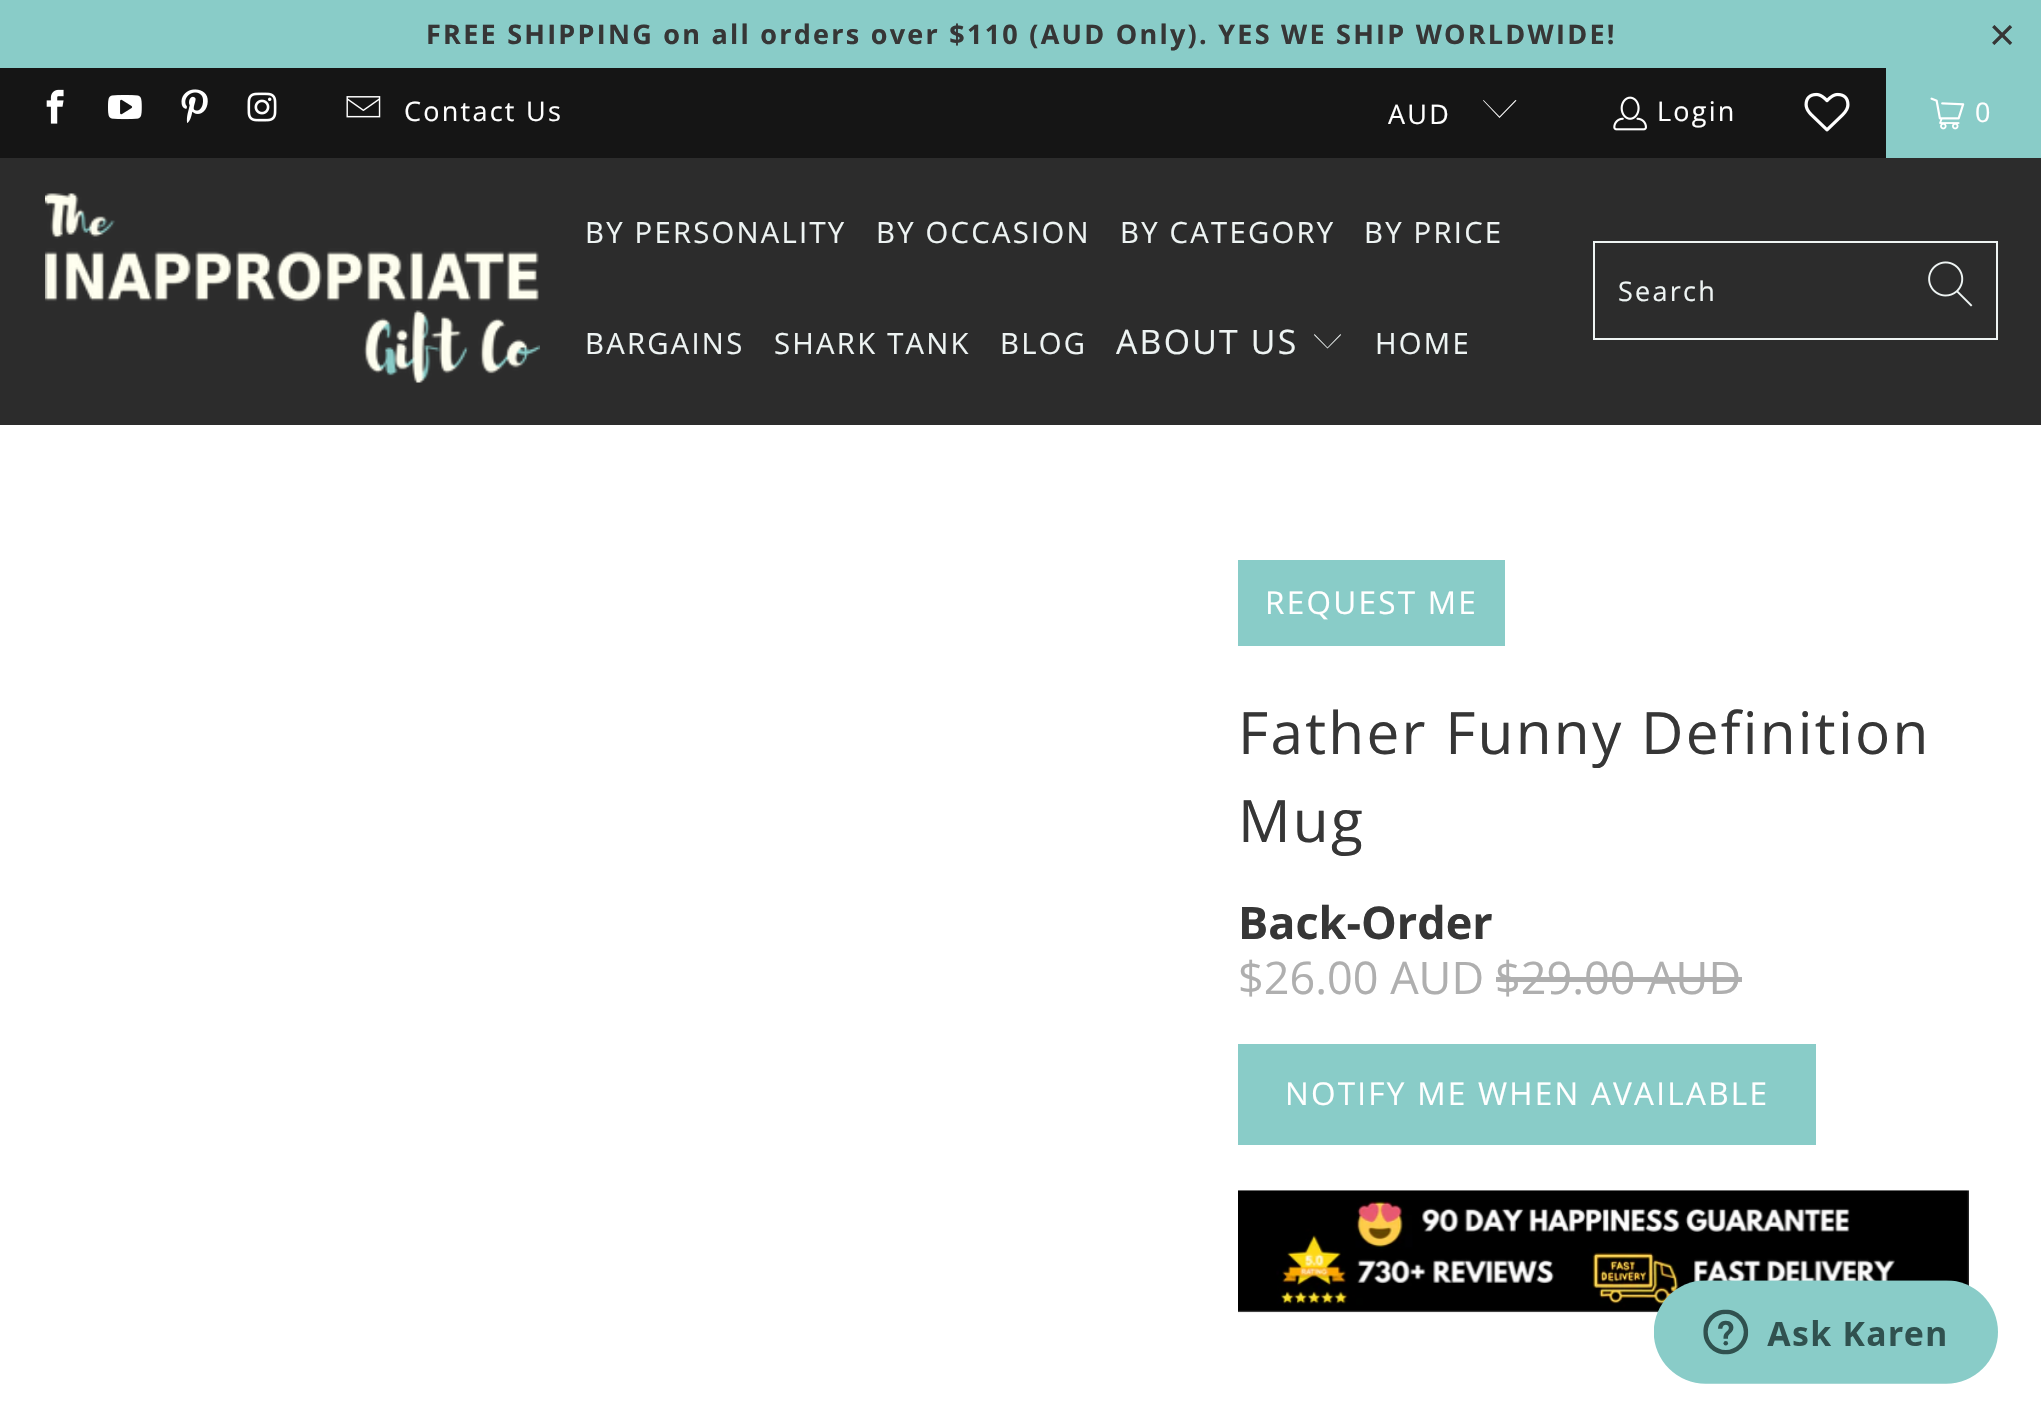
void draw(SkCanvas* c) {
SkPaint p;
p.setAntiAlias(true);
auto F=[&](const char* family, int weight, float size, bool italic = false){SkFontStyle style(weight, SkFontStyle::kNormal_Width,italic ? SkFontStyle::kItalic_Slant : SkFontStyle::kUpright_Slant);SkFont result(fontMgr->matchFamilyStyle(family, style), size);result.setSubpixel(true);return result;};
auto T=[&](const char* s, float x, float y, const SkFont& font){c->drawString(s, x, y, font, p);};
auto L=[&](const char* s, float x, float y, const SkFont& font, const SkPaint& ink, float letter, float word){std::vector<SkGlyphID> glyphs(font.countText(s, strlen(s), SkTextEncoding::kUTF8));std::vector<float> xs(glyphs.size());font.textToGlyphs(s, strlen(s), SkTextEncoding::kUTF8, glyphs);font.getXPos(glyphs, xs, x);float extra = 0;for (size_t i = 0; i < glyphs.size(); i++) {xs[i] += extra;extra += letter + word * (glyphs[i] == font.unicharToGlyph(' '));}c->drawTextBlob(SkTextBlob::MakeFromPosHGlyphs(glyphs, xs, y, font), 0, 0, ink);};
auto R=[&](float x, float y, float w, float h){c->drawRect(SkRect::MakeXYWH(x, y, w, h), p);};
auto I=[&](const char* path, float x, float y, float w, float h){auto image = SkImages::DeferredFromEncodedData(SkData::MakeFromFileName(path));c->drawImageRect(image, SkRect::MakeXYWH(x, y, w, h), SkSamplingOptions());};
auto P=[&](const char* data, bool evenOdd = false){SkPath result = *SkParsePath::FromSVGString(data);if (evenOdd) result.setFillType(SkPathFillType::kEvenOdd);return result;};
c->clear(0xffffffff);
p.setColor(0xff89ccc8);
R(0,0,2041,68);
auto f1 = F("Open Sans",700,27);
p.setColor(0xff363636);
L("FREE SHIPPING on all orders over $110 (AUD Only). YES WE SHIP WORLDWIDE!",426,44,f1,p,2.25,0);
auto f2 = F("Liberation Sans",400,45);
L("×",1989,50,f2,p,2.25,0);
p.setColor(0xff151515);
R(0,68,1886,90);
I("1.png",46,89,18,35);
I("2.png",108,95,34,25);
I("3.png",181,89,27,34);
I("4.png",247,92,30,30);
I("5.png",346,96,35,22);
auto f3 = F("Open Sans",400,27);
p.setColor(0xffffffff);
L("Contact Us",404,121,f3,p,2.25,0);
L("AUD",1388,124,f3,p,2.25,0);
c->drawPath(P("M1499.5 118l-16.5-17.5l.5-.5l16 16.5l16-16.5l1 .5z"),p);
I("6.png",1613,96,34,35);
L("Login",1657,121,f3,p,2.25,0);
I("7.png",1804,92,46,40);
p.setColor(0xff89ccc8);
R(1886,68,155,90);
I("8.png",1930,97,35,33);
p.setColor(0xffffffff);
L("0",1975,122,f3,p,2.25,0);
p.setColor(0xff2c2c2c);
R(0,158,2041,267);
I("9.png",45,193,495,190);
auto f4 = F("Open Sans",400,29.25);
p.setColor(0xffeef4f3);
L("BY PERSONALITY",585,243,f4,p,2.25,0);
L("BY OCCASION",876,243,f4,p,2.25,0);
L("BY CATEGORY",1120,243,f4,p,2.25,0);
L("BY PRICE",1364,243,f4,p,2.25,0);
L("BARGAINS",585,354,f4,p,2.25,0);
L("SHARK TANK",774,354,f4,p,2.25,0);
L("BLOG",1000,354,f4,p,2.25,0);
auto f5 = F("Open Sans",400,33.75);
L("ABOUT US",1116,354,f5,p,2.25,0);
c->drawPath(P("M1327.5 348.5l-13.5-13.5l.5-1l13 13.5l13-13.5l.5 1z"),p);
L("HOME",1375,354,f4,p,2.25,0);
p.setStroke(true);
p.setStrokeWidth(2);
c->drawRect(SkRect::MakeXYWH(1594,242,403,97),p);
p.setStroke(false);
L("Search",1618,301,f3,p,2.25,0);
I("10.png",1928,261,45,46);
p.setColor(0xff89ccc8);
R(1238,560,267,86);
auto f6 = F("Open Sans",400,31.5);
p.setColor(0xffffffff);
L("REQUEST ME",1265,614,f6,p,2.25,0);
auto f7 = F("Open Sans",400,58.5);
p.setColor(0xff363636);
L("Father Funny Definition",1238,754,f7,p,2.25,0);
L("Mug",1238,842,f7,p,2.25,0);
auto f8 = F("Open Sans",700,45);
T("Back-Order",1238,939,f8);
auto f9 = F("Open Sans",400,45);
p.setColor(0xffafafaf);
T("$26.00 AUD",1238,994,f9);
T("$29.00 AUD",1495,994,f9);
R(1496,977,246,5);
p.setColor(0xff89ccc8);
R(1238,1044,578,101);
p.setColor(0xffffffff);
L("NOTIFY ME WHEN AVAILABLE",1285,1105,f6,p,2.25,0);
I("11.png",1238,1190,731,123);
I("12.png",1654,1280,344,104);
}
